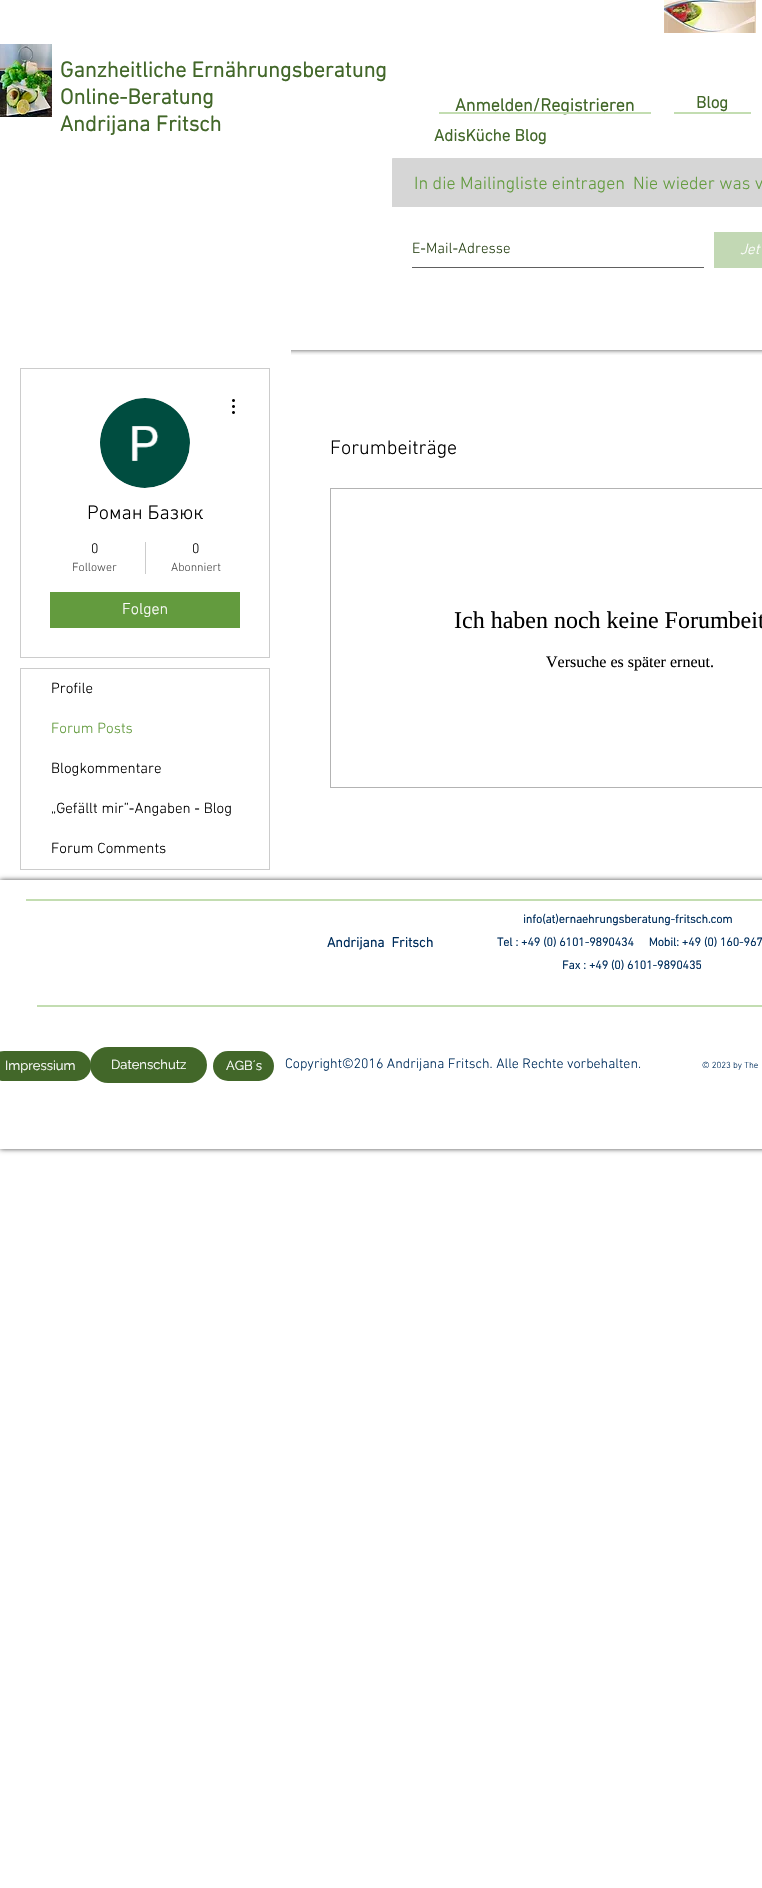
void draw(SkCanvas* c) {
SkPaint p;
p.setAntiAlias(true);
auto F=[&](const char* family, int weight, float size, bool italic = false){SkFontStyle style(weight, SkFontStyle::kNormal_Width,italic ? SkFontStyle::kItalic_Slant : SkFontStyle::kUpright_Slant);SkFont result(fontMgr->matchFamilyStyle(family, style), size);result.setSubpixel(true);return result;};
auto T=[&](const char* s, float x, float y, const SkFont& font){c->drawString(s, x, y, font, p);};
auto R=[&](float x, float y, float w, float h){c->drawRect(SkRect::MakeXYWH(x, y, w, h), p);};
auto Q=[&](float x, float y, float w, float h, float radius){c->drawRoundRect(SkRect::MakeXYWH(x, y, w, h), radius, radius, p);};
auto I=[&](const char* path, float x, float y, float w, float h){auto image = SkImages::DeferredFromEncodedData(SkData::MakeFromFileName(path));c->drawImageRect(image, SkRect::MakeXYWH(x, y, w, h), SkSamplingOptions());};
auto P=[&](const char* data, bool evenOdd = false){SkPath result = *SkParsePath::FromSVGString(data);if (evenOdd) result.setFillType(SkPathFillType::kEvenOdd);return result;};
c->clear(0xffffffff);
c->save();
c->clipRect(SkRect::MakeXYWH(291,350,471,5));
p.setColor(0xb3000000);
p.setMaskFilter(SkMaskFilter::MakeBlur(kNormal_SkBlurStyle, 2.5));
c->drawRect(SkRect::MakeXYWH(0,0,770,350),p);
p.setMaskFilter(nullptr);
c->restore();
I("1.png",664,0,92,33);
I("2.png",0,44,52,73);
auto f1 = F("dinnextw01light",700,22);
p.setColor(0xff426729);
T("Ganzheitliche Ernährungsberatung",60,77,f1);
T("Online-Beratung",60,104,f1);
T("Andrijana Fritsch",60,131,f1);
auto f2 = F("dinnextw01light",700,18);
T("Anmelden/Registrieren",455,111,f2);
auto f3 = F("dinnextw01light",700,17);
T("Blog",696,108,f3);
p.setColor(0xffc3ddb1);
R(439,112,212,2);
R(674,112,77,2);
p.setColor(0xff426729);
T("AdisKüche Blog",434,141,f3);
p.setColor(0xffd6d6d6);
c->drawPath(P("M393 158h369c.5 0 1 .5 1 1v48h-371v-48c0-.5 .5-1 1-1z"),p);
auto f4 = F("dinnextw01light",300,18);
p.setColor(0xff639b3e);
T("In die Mailingliste eintragen",414,189,f4);
T("Nie wieder was v",633,189,f4);
p.setColor(0xff606060);
R(412,267,292,1);
auto f5 = F("dinnextw01light",300,15);
p.setColor(0xff2c451a);
T("E-Mail-Adresse",412,253,f5);
p.setColor(0xffc2d8b4);
R(714,232,48,36);
auto f6 = F("dinnextw01light",300,15,true);
p.setColor(0xffffffff);
T("Jet",740,254,f6);
R(0,350,291,5);
p.setStroke(true);
p.setStrokeWidth(1);
p.setColor(0xffcccccc);
c->drawRect(SkRect::MakeXYWH(20.5,368.5,249,289),p);
p.setStroke(false);
p.setColor(0xffd8d8d8);
c->drawCircle(145,443,45,p);
I("3.png",100,398,90,90);
I("4.png",232,399,3,15);
auto f7 = F("dinnextw01light",300,20);
p.setColor(0xff000000);
T("Роман Базюк",87,519,f7);
auto f8 = F("dinnextw01light",300,14);
T("0",91,553,f8);
auto f9 = F("dinnextw01light",300,12);
p.setColor(0xff4d4d4d);
T("Follower",72,571,f9);
p.setColor(0xffcccccc);
R(145,542,1,32);
p.setColor(0xff000000);
T("0",192,553,f8);
p.setColor(0xff4d4d4d);
T("Abonniert",171,571,f9);
p.setColor(0xff639b3e);
R(50,592,190,36);
auto f10 = F("dinnextw01light",300,16);
p.setColor(0xffffffff);
T("Folgen",122,614,f10);
p.setStroke(true);
p.setColor(0xffcccccc);
c->drawRect(SkRect::MakeXYWH(20.5,668.5,249,201),p);
p.setStroke(false);
p.setColor(0xff000000);
T("Profile",51,693,f5);
p.setColor(0xff639b3e);
T("Forum Posts",51,733,f5);
p.setColor(0xff000000);
T("Blogkommentare",51,773,f5);
T("„Gefällt mir”-Angaben - Blog",51,813,f5);
T("Forum Comments",51,853,f5);
T("Forumbeiträge",330,454,f7);
p.setStroke(true);
p.setColor(0xffb3b3b3);
c->drawRect(SkRect::MakeXYWH(330.5,488.5,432,299),p);
auto f11 = F("Liberation Serif",400,24);
p.setStroke(false);
p.setColor(0xff000000);
T("Ich haben noch keine Forumbeit",454,628,f11);
auto f12 = F("Liberation Serif",400,16);
T("Versuche es später erneut.",546,667,f12);
c->save();
c->clipPath(P("M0 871h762v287h-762zm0 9h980v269h-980z",true),true);
p.setColor(0xb3000000);
p.setMaskFilter(SkMaskFilter::MakeBlur(kNormal_SkBlurStyle, 2.5));
c->drawRect(SkRect::MakeXYWH(0,880,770,269),p);
p.setMaskFilter(nullptr);
c->restore();
p.setColor(0xffc3ddb1);
R(26,899,736,2);
auto f13 = F("dinnextw01light",700,12);
p.setColor(0xff002e5d);
T("info(at)ernaehrungsberatung-fritsch.com",523,923,f13);
auto f14 = F("dinnextw01light",700,14);
T("Andrijana  Fritsch",327,947,f14);
T("Tel : +49 (0) 6101-9890434     Mobil: +49 (0) 160-967",497,946,f13);
T("Fax : +49 (0) 6101-9890435",562,969,f13);
p.setColor(0xffc3ddb1);
R(37,1005,725,2);
p.setColor(0xff426729);
Q(-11,1051,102,30,15);
auto f15 = F("Raleway",400,13);
p.setColor(0xffffffff);
T("Impressium",5,1070,f15);
p.setColor(0xff426729);
Q(90,1047,117,36,18);
p.setColor(0xffffffff);
T("Datenschutz",111,1069,f15);
p.setColor(0xff426729);
Q(213,1051,61,30,15);
p.setColor(0xffffffff);
T("AGB´s",226,1070,f15);
p.setColor(0xff002e5d);
T("Copyright©2016 Andrijana Fritsch. Alle Rechte vorbehalten.",285,1068,f8);
auto f16 = F("dinnextw01light",300,9);
T("© 2023 by The",702,1068,f16);
}
